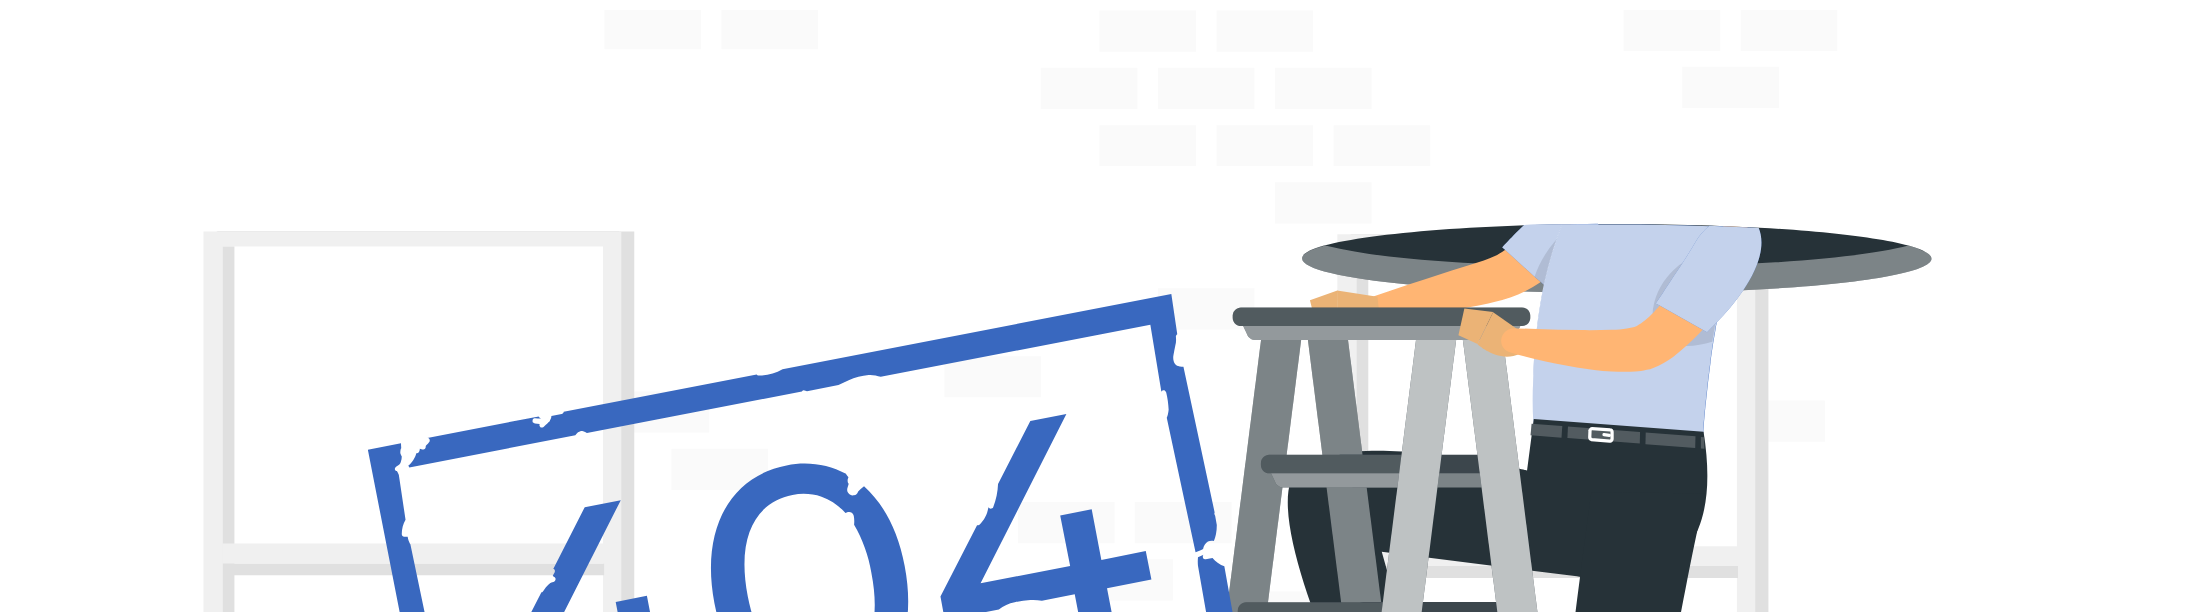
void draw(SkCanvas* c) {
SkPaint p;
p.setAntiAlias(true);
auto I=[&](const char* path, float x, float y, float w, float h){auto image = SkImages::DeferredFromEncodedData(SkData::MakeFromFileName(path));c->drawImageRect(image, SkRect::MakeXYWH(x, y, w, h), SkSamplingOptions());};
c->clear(0xffffffff);
I("1.png",203,10,1729,602);
}
